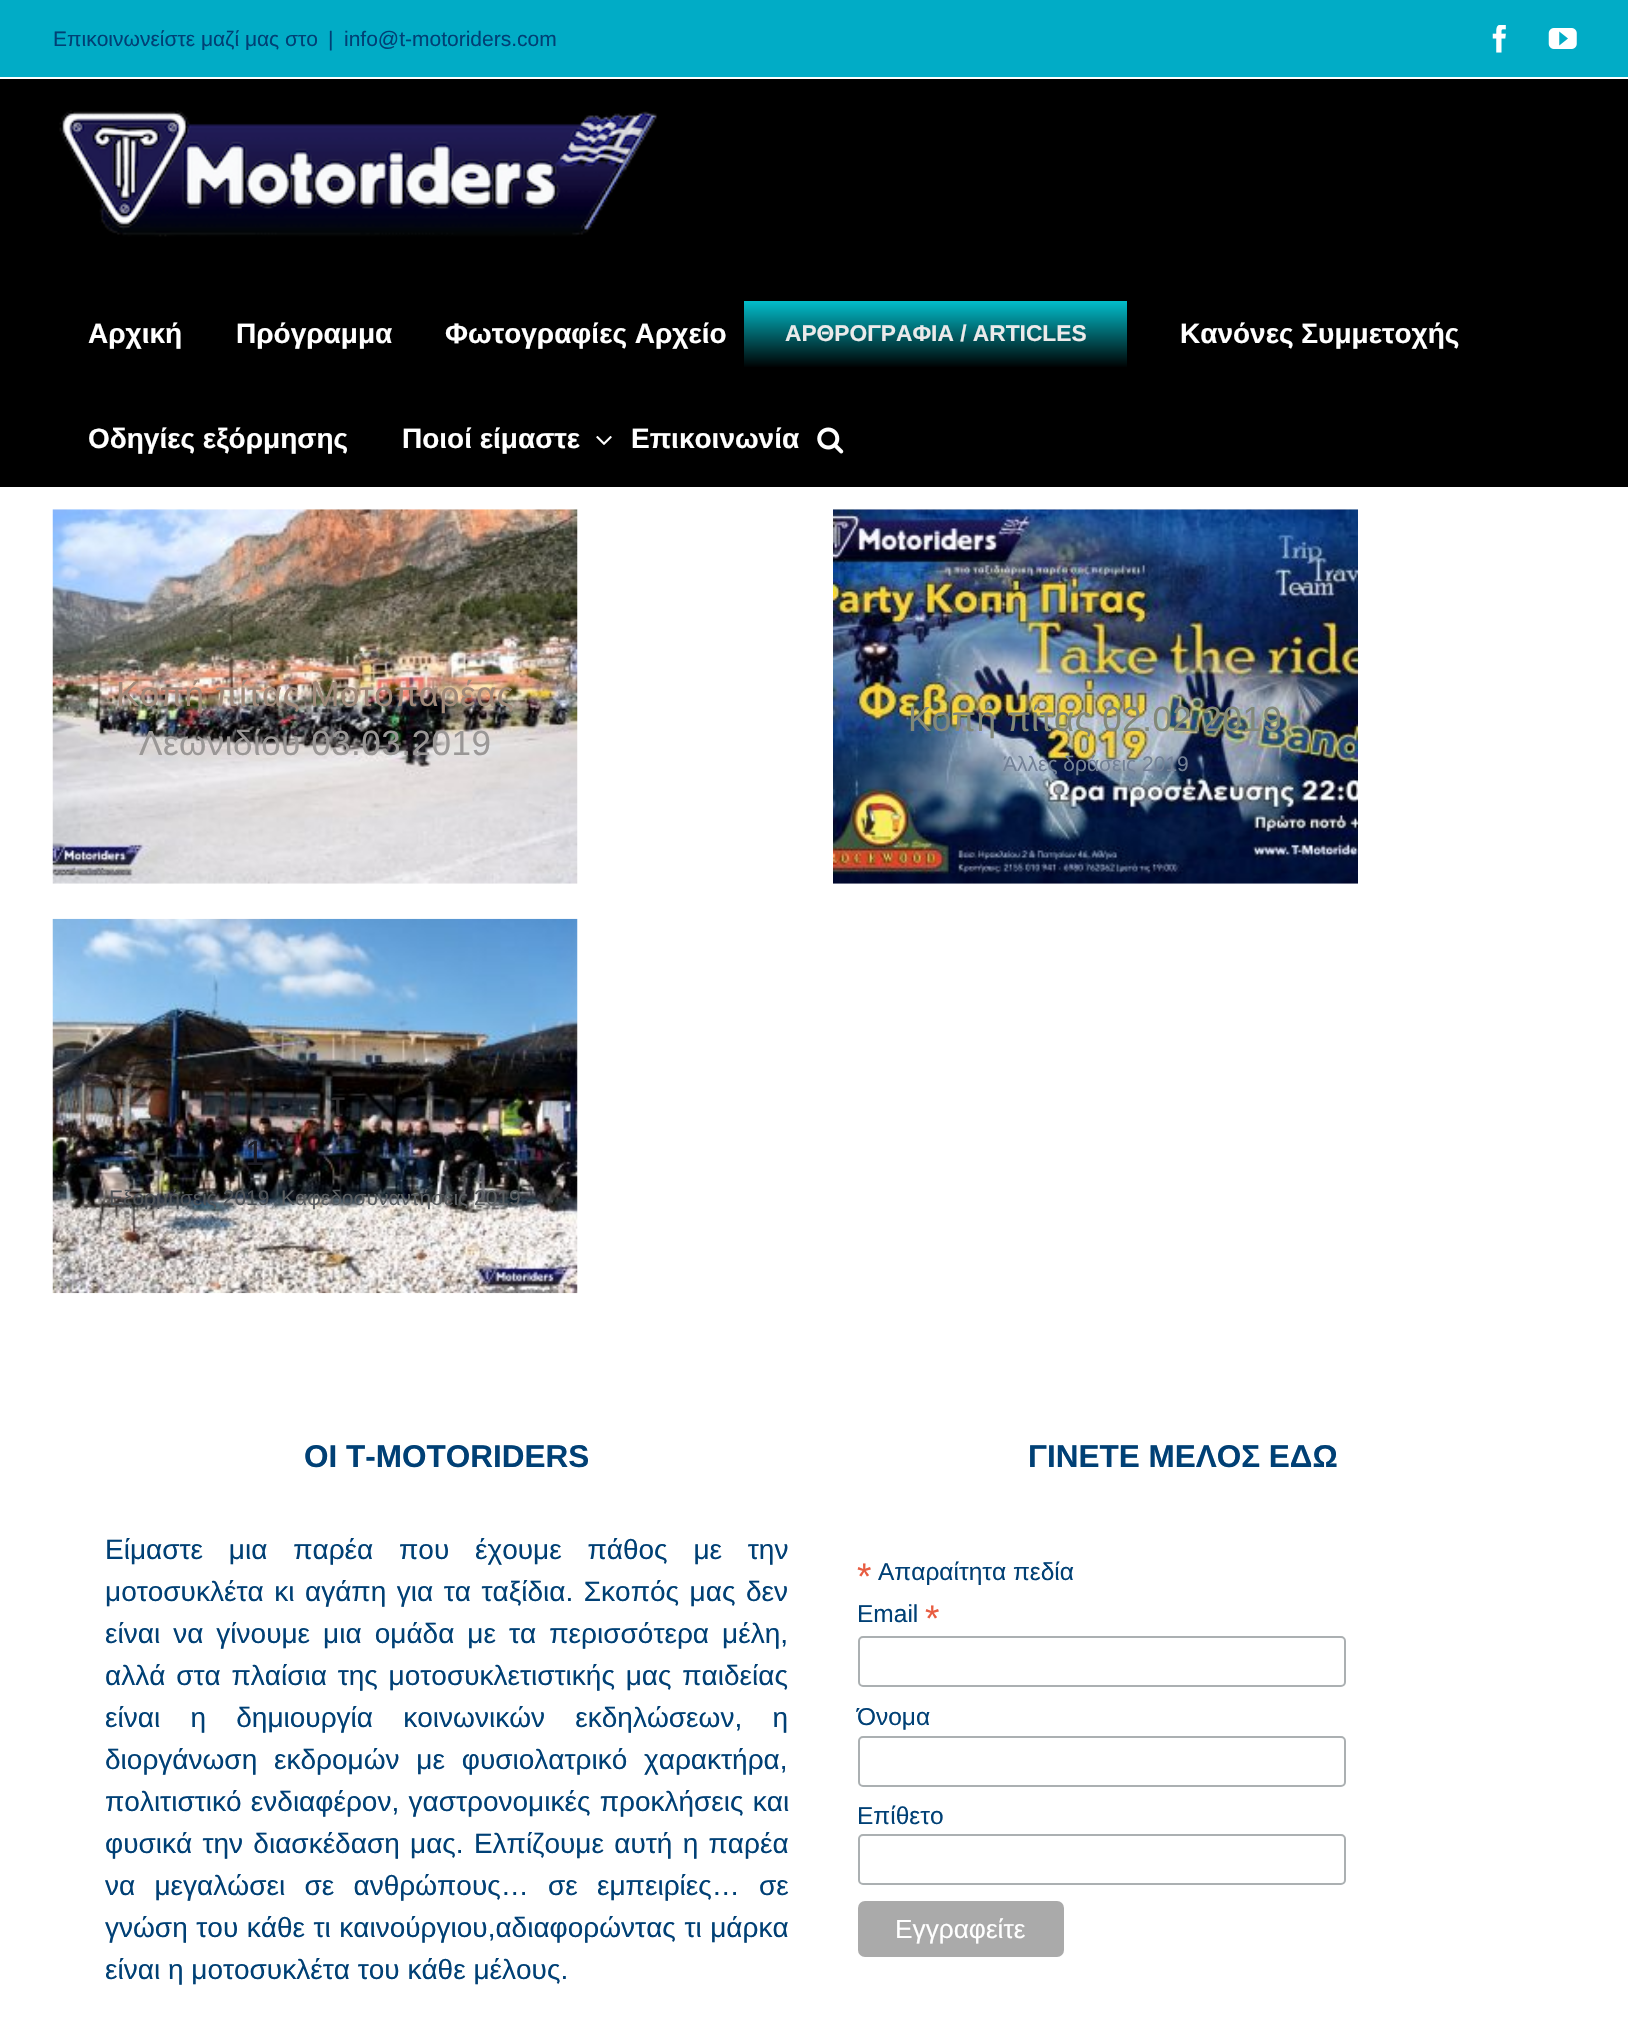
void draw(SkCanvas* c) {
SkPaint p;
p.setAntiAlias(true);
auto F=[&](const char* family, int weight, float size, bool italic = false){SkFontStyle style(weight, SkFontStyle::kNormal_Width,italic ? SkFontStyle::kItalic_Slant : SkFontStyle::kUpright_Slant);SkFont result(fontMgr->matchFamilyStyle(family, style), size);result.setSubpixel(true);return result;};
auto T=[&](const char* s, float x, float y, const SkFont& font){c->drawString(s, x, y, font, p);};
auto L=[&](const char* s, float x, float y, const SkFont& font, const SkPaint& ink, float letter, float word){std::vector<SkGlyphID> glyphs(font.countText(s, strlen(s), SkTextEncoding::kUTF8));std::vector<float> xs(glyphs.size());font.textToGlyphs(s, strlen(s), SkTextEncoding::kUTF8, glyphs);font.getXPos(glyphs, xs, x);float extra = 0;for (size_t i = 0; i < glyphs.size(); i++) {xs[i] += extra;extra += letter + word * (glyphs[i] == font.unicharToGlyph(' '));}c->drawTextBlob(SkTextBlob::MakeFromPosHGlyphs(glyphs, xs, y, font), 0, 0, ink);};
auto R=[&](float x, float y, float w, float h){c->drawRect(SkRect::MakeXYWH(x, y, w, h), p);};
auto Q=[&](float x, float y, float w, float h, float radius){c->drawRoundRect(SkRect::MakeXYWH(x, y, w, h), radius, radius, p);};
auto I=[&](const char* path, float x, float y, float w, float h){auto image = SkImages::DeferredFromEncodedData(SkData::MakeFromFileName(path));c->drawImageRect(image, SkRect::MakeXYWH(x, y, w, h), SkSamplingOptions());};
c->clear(0xffffffff);
p.setColor(0xff01acc6);
R(0,0,1628,77);
auto f1 = F("Liberation Sans",400,21);
p.setColor(0xff004075);
T("Επικοινωνείστε μαζί μας στο",53,46,f1);
T("|",328,46,f1);
T("info@t-motoriders.com",344,46,f1);
I("1.png",1492,25,14,28);
I("2.png",1548,28,29,21);
p.setColor(0xff000000);
R(0,79,1628,408);
I("3.png",59,110,598,127);
auto f2 = F("Liberation Sans",700,28);
p.setColor(0xffffffff);
T("Αρχική",88,343,f2);
T("Πρόγραμμα",236,343,f2);
T("Φωτογραφίες Αρχείο",445,343,f2);
{
const SkColor colors[] = {0xff02becc,0xff000000};
const float stops[] = {0,1};
const SkPoint ends[] = {{935,301}, {935,368}};
p.setShader(SkGradientShader::MakeLinear(ends, colors, stops, 2, SkTileMode::kClamp));
p.setAlpha(255);
}
R(744,301,383,66);
auto f3 = F("Liberation Sans",700,22.75);
p.setShader(nullptr);
p.setColor(0xffebeaea);
T("ΑΡΘΡΟΓΡΑΦΙΑ / ARTICLES",785,341,f3);
p.setColor(0xffffffff);
T("Κανόνες Συμμετοχής",1180,343,f2);
T("Οδηγίες εξόρμησης",88,448,f2);
T("Ποιοί είμαστε",402,448,f2);
I("4.png",596,436,16,9);
T("Επικοινωνία",631,448,f2);
I("5.png",817,427,27,27);
I("6.png",52,509,526,375);
auto f4 = F("Liberation Sans",400,35);
p.setColor(0xffa0897a);
L("Κοπή πίτας Μοτοπαρέας",116,706,f4,p,.5,0);
p.setColor(0xff9a9796);
L("Λεωνιδίου 03.03.2019",139,755,f4,p,.5,0);
I("7.png",833,509,525,375);
p.setColor(0xff828879);
L("Κοπή πίτας 02.02.2019",908,731,f4,p,.5,0);
p.setColor(0xff738196);
T("Άλλες δράσεις 2019",1003,771,f1);
I("8.png",52,918,526,376);
p.setColor(0xff2d2b2d);
L("τ",331,1116,f4,p,.5,0);
p.setColor(0xff1d1c25);
L("1",245,1165,f4,p,.5,0);
p.setColor(0xff4f5358);
T("Εξορμήσεις 2019",109,1205,f1);
p.setColor(0xff858c95);
T(",",270,1205,f1);
p.setColor(0xff5b5f62);
T("Καφεδοσυναντήσεις 2019",281,1205,f1);
auto f5 = F("Liberation Sans",700,31.5);
p.setColor(0xff004075);
T("ΟΙ Τ-MOTORIDERS",304,1467,f5);
auto f6 = F("Liberation Sans",400,28);
L("Είμαστε μια παρέα που έχουμε πάθος με την",105,1559,f6,p,0,18);
L("μοτοσυκλέτα κι αγάπη για τα ταξίδια. Σκοπός μας δεν",105,1601,f6,p,0,2.75);
L("είναι να γίνουμε μια ομάδα με τα περισσότερα μέλη,",105,1643,f6,p,0,5.25);
L("αλλά στα πλαίσια της μοτοσυκλετιστικής μας παιδείας",105,1685,f6,p,0,3);
L("είναι η δημιουργία κοινωνικών εκδηλώσεων, η",105,1727,f6,p,0,22.5);
L("διοργάνωση εκδρομών με φυσιολατρικό χαρακτήρα,",105,1769,f6,p,0,9);
L("πολιτιστικό ενδιαφέρον, γαστρονομικές προκλήσεις και",105,1811,f6,p,0,1.5);
L("φυσικά την διασκέδαση μας. Ελπίζουμε αυτή η παρέα",105,1853,f6,p,0,2.5);
L("να μεγαλώσει σε ανθρώπους… σε εμπειρίες… σε",105,1895,f6,p,0,11.5);
L("γνώση του κάθε τι καινούργιου,αδιαφορώντας τι μάρκα",105,1937,f6,p,0,.75);
T("είναι η μοτοσυκλέτα του κάθε μέλους.",105,1979,f6);
T("ΓΙΝΕΤΕ ΜΕΛΟΣ ΕΔΩ",1028,1467,f5);
auto f7 = F("Liberation Sans",400,37);
p.setColor(0xffe85c41);
T("*",857,1589,f7);
auto f8 = F("Liberation Sans",400,24.5);
p.setColor(0xff004075);
T("Απαραίτητα πεδία",878,1580,f8);
T("Email",857,1622,f8);
p.setColor(0xffe85c41);
T("*",925,1631,f7);
p.setStroke(true);
p.setStrokeWidth(2);
p.setColor(0xffabb0b2);
c->drawRoundRect(SkRect::MakeXYWH(859,1637,486,49),4,4,p);
p.setStroke(false);
p.setColor(0xff004075);
T("Όνομα",857,1725,f8);
p.setStroke(true);
p.setColor(0xffabb0b2);
c->drawRoundRect(SkRect::MakeXYWH(859,1737,486,49),4,4,p);
p.setStroke(false);
p.setColor(0xff004075);
T("Επίθετο",857,1824,f8);
p.setStroke(true);
p.setColor(0xffabb0b2);
c->drawRoundRect(SkRect::MakeXYWH(859,1835,486,49),4,4,p);
p.setStroke(false);
p.setColor(0xffaaaaaa);
Q(858,1901,206,56,7);
auto f9 = F("Liberation Sans",400,26.25);
p.setColor(0xffffffff);
T("Εγγραφείτε",895,1938,f9);
}
